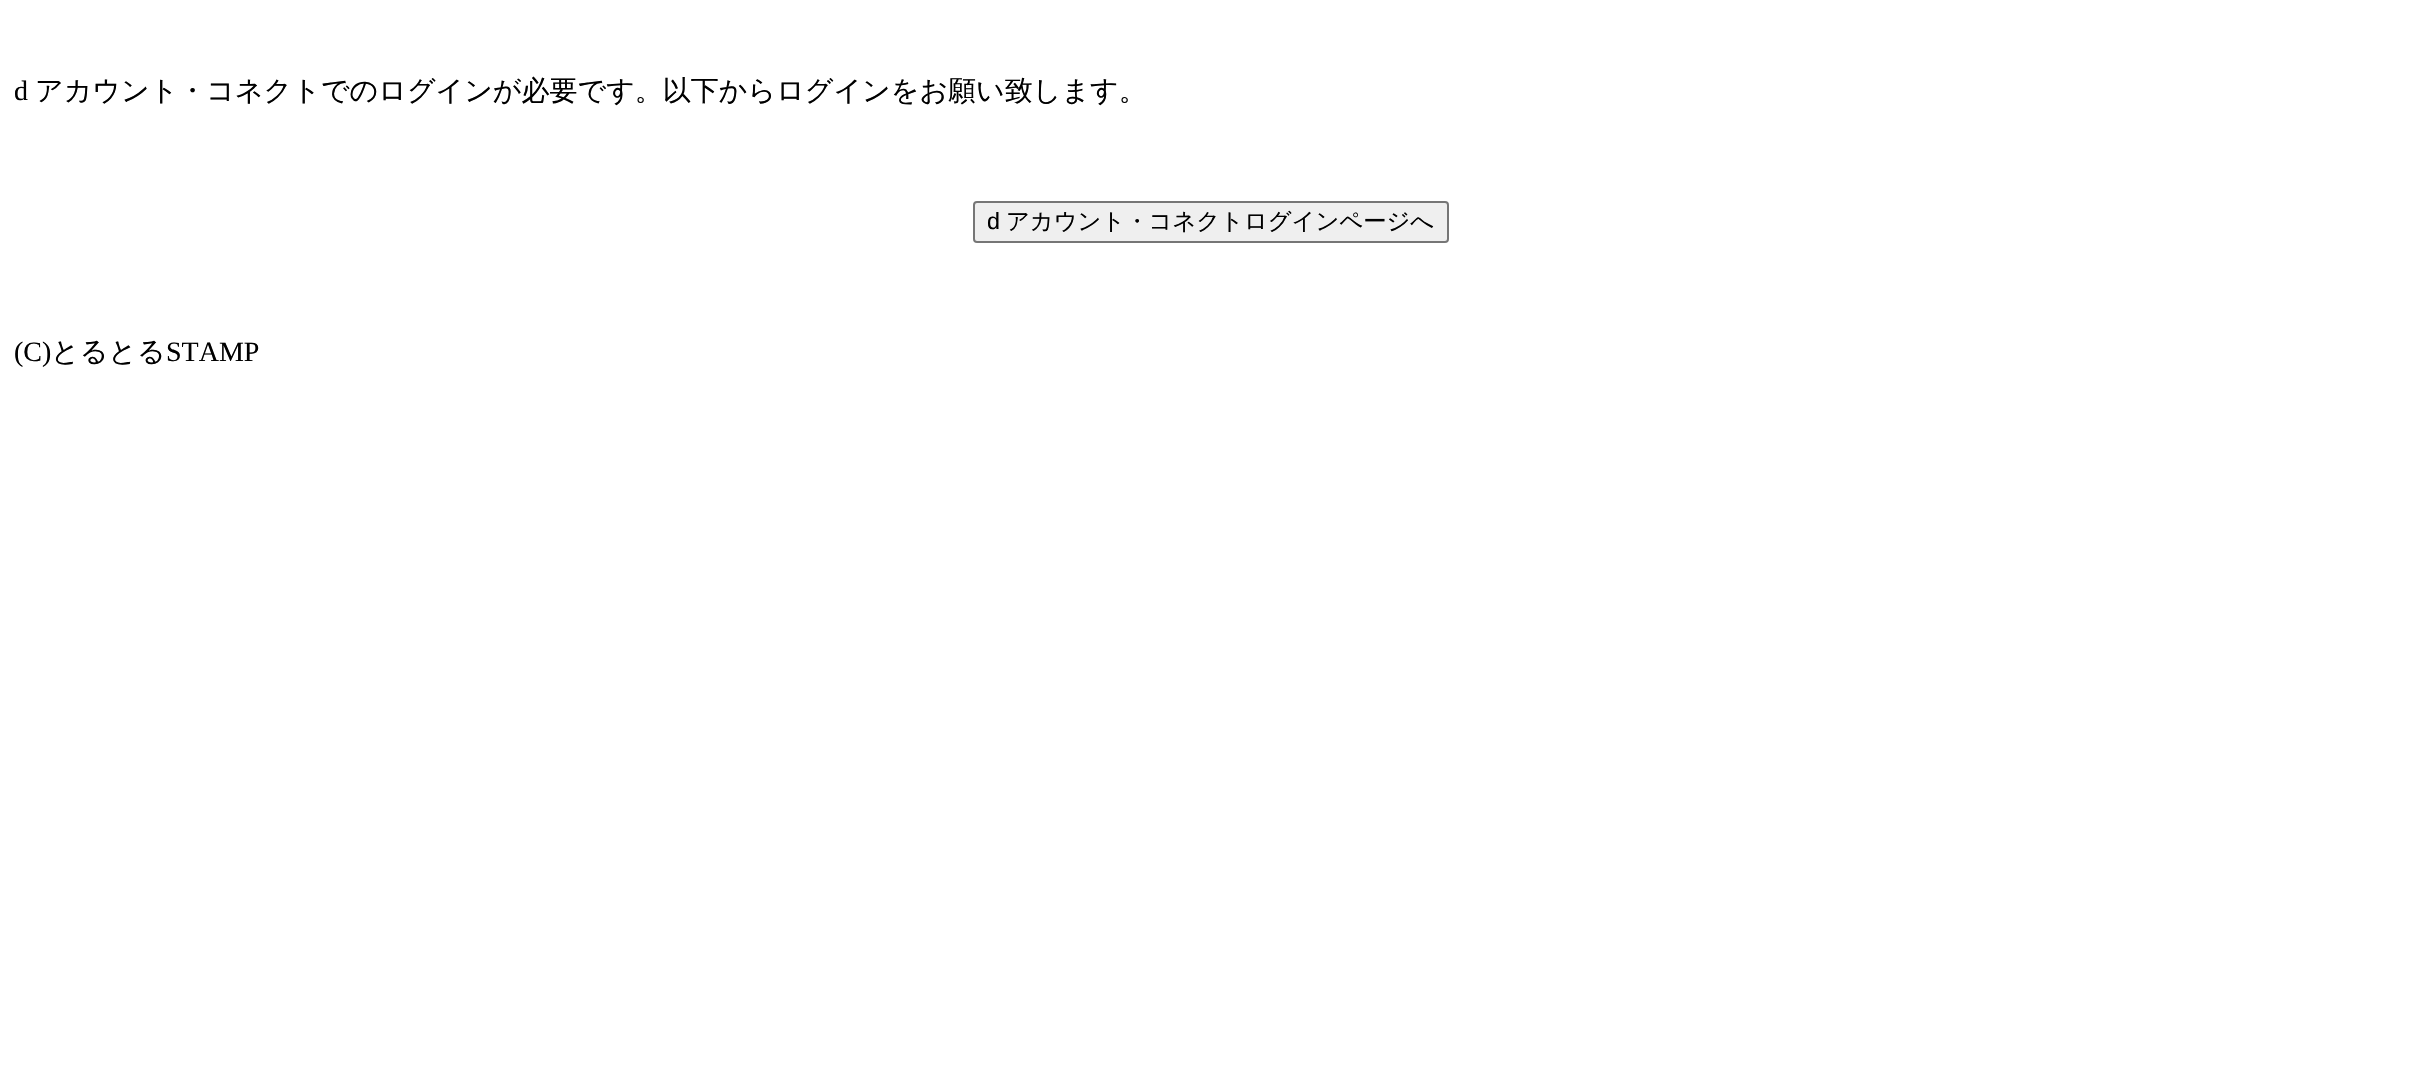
void draw(SkCanvas* c) {
SkPaint p;
p.setAntiAlias(true);
auto F=[&](const char* family, int weight, float size, bool italic = false){SkFontStyle style(weight, SkFontStyle::kNormal_Width,italic ? SkFontStyle::kItalic_Slant : SkFontStyle::kUpright_Slant);SkFont result(fontMgr->matchFamilyStyle(family, style), size);result.setSubpixel(true);return result;};
auto T=[&](const char* s, float x, float y, const SkFont& font){c->drawString(s, x, y, font, p);};
c->clear(0xffffffff);
auto f1 = F("Liberation Serif",400,28);
p.setColor(0xff000000);
T("d",14,100,f1);
auto f2 = F("WenQuanYi Zen Hei",500,28);
T("アカウント・コネクトでのログインが必要です。以下からログインをお願い致します。",35,100,f2);
p.setColor(0xffefefef);
c->drawRoundRect(SkRect::MakeXYWH(974,202,474,40),3,3,p);
p.setStroke(true);
p.setStrokeWidth(2);
p.setColor(0xff767676);
c->drawRoundRect(SkRect::MakeXYWH(974,202,474,40),3,3,p);
auto f3 = F("Liberation Sans",400,23.3);
p.setStroke(false);
p.setColor(0xff000000);
T("d",987,229,f3);
auto f4 = F("WenQuanYi Zen Hei",500,23.3);
T("アカウント・コネクトログインページへ",1006,229,f4);
T("(C)",14,361,f1);
T("とるとる",51,361,f2);
T("STAMP",166,361,f1);
}
